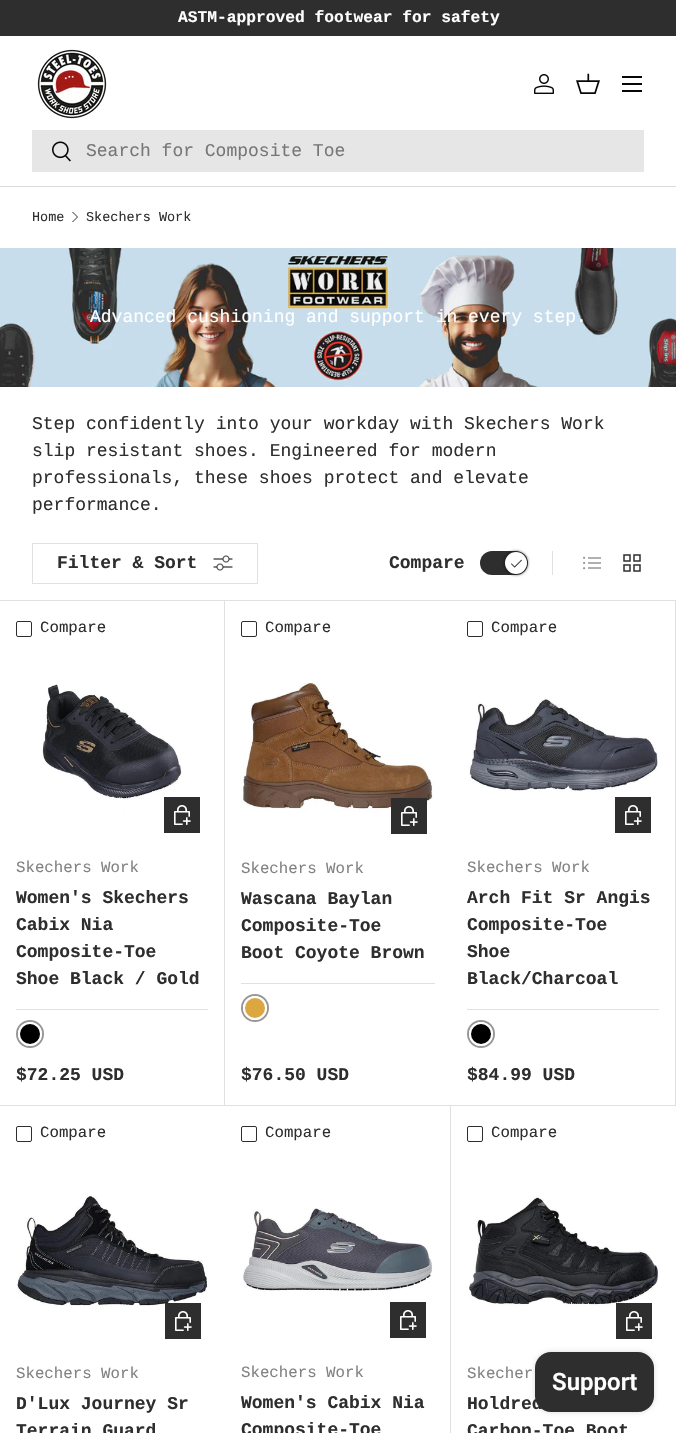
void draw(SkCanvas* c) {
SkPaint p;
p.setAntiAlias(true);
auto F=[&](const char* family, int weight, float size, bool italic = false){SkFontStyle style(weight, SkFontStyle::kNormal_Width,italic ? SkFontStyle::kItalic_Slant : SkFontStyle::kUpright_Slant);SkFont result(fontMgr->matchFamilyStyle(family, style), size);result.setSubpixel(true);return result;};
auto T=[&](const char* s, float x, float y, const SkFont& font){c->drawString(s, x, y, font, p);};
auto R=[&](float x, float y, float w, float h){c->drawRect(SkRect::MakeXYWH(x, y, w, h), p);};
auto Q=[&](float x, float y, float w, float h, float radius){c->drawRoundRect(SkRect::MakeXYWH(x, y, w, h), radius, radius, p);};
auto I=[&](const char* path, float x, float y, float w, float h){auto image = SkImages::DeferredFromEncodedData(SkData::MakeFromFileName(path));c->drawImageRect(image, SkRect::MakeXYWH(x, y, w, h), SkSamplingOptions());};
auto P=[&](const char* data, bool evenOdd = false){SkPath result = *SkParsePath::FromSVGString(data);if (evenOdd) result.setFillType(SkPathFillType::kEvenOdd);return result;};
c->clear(0xffffffff);
p.setColor(0xff2e2e2e);
R(0,0,676,36);
auto f1 = F("Liberation Mono",700,16.25);
p.setColor(0xffffffff);
T("ASTM-approved footwear for safety",178,22,f1);
p.setColor(0xffdadada);
R(0,186,676,1);
I("1.png",37,49,70,70);
I("2.png",534,74,20,20);
I("3.png",576,73,24,21);
p.setColor(0xff070707);
R(622,76,20,2);
R(622,90,20,2);
R(622,83,20,2);
p.setColor(0xffe6e6e6);
R(32,130,612,42);
I("4.png",52,141,19,21);
auto f2 = F("Liberation Mono",400,18);
p.setColor(0xff777777);
T("Search for Composite Toe",86,156,f2);
auto f3 = F("Liberation Mono",400,13.5);
p.setColor(0xff2e2e2e);
T("Home",32,221,f3);
p.setStroke(true);
p.setStrokeWidth(1);
c->drawPath(P("M72.5 212l5 5l-5 5"),p);
p.setStroke(false);
T("Skechers Work",86,221,f3);
I("5.png",0,248,676,139);
p.setColor(0xffffffff);
T("Advanced cushioning and support in every step.",90,322,f2);
p.setColor(0xff2e2e2e);
T("Step confidently into your workday with Skechers Work",32,429,f2);
T("slip resistant shoes. Engineered for modern",32,456,f2);
T("professionals, these shoes protect and elevate",32,483,f2);
T("performance.",32,510,f2);
p.setStroke(true);
p.setColor(0xffe0e0e0);
c->drawRect(SkRect::MakeXYWH(32.5,543.5,225,40),p);
auto f4 = F("Liberation Mono",700,18);
p.setStroke(false);
p.setColor(0xff2e2e2e);
T("Filter & Sort",57,568,f4);
I("6.png",213,555,20,16);
Q(480,551,48,24,12);
p.setColor(0x40000000);
p.setMaskFilter(SkMaskFilter::MakeBlur(kNormal_SkBlurStyle, 1));
c->drawRoundRect(SkRect::MakeXYWH(503,550,26,26),13,13,p);
p.setMaskFilter(nullptr);
p.setColor(0xffffffff);
c->drawCircle(516,563,11,p);
I("7.png",511,559,11,9);
p.setColor(0xff2e2e2e);
T("Compare",389,568,f4);
p.setColor(0xffe0e0e0);
R(552,551,1,24);
I("8.png",583,556,18,14);
I("9.png",623,554,18,18);
R(0,600,676,1);
c->drawPath(P("M225 601v505l-1-1v-504z"),p);
p.setColor(0x262e2e2e);
c->drawPath(P("M225 1106h-225v-1h224z"),p);
p.setStroke(true);
p.setColor(0xff2e2e2e);
c->drawRoundRect(SkRect::MakeXYWH(16.5,621.5,15,15),1.5,1.5,p);
auto f5 = F("Liberation Mono",400,15.75);
p.setStroke(false);
T("Compare",40,632,f5);
I("10.png",16,649,192,192);
{
const SkColor colors[] = {0xff555555,0xff2e2e2e,0xff2e2e2e};
const float stops[] = {.6,.6,1};
const SkPoint ends[] = {{96,802}, {200,828}};
p.setShader(SkGradientShader::MakeLinear(ends, colors, stops, 3, SkTileMode::kClamp));
p.setAlpha(255);
}
R(165,798,34,34);
p.setStroke(true);
p.setShader(nullptr);
p.setColor(0xff2e2e2e);
c->drawRect(SkRect::MakeXYWH(164.5,797.5,35,35),p);
I("11.png",174,805,17,20);
p.setStroke(false);
p.setColor(0xff828282);
T("Skechers Work",16,872,f5);
p.setColor(0xff2e2e2e);
T("Women's Skechers",16,903,f4);
T("Cabix Nia",16,930,f4);
T("Composite-Toe",16,957,f4);
T("Shoe Black / Gold",16,984,f4);
p.setColor(0xffe0e0e0);
R(16,1009,192,1);
p.setStroke(true);
p.setStrokeWidth(2);
p.setColor(0xff979797);
c->drawCircle(30,1034,13,p);
p.setColor(0xffffffff);
c->drawCircle(30,1034,11,p);
p.setStroke(false);
p.setColor(0xff000000);
c->drawCircle(30,1034,10,p);
p.setColor(0xff2e2e2e);
T("$72.25 USD",16,1080,f4);
p.setColor(0xffe0e0e0);
R(225,1105,226,1);
p.setStroke(true);
p.setStrokeWidth(1);
p.setColor(0xff2e2e2e);
c->drawRoundRect(SkRect::MakeXYWH(241.5,621.5,15,15),1.5,1.5,p);
p.setStroke(false);
T("Compare",265,632,f5);
I("12.png",241,649,194,193);
{
const SkColor colors[] = {0xff555555,0xff2e2e2e,0xff2e2e2e};
const float stops[] = {.6,.6,1};
const SkPoint ends[] = {{323,803}, {427,829}};
p.setShader(SkGradientShader::MakeLinear(ends, colors, stops, 3, SkTileMode::kClamp));
p.setAlpha(255);
}
R(392,799,34,34);
p.setStroke(true);
p.setShader(nullptr);
p.setColor(0xff2e2e2e);
c->drawRect(SkRect::MakeXYWH(391.5,798.5,35,35),p);
I("11.png",401,806,17,20);
p.setStroke(false);
p.setColor(0xff828282);
T("Skechers Work",241,873,f5);
p.setColor(0xff2e2e2e);
T("Wascana Baylan",241,904,f4);
T("Composite-Toe",241,931,f4);
T("Boot Coyote Brown",241,958,f4);
p.setColor(0xffe0e0e0);
R(241,983,194,1);
p.setStroke(true);
p.setStrokeWidth(2);
p.setColor(0xff979797);
c->drawCircle(255,1008,13,p);
p.setColor(0xffffffff);
c->drawCircle(255,1008,11,p);
p.setStroke(false);
p.setColor(0xffdca740);
c->drawCircle(255,1008,10,p);
p.setColor(0xff2e2e2e);
T("$76.50 USD",241,1080,f4);
p.setColor(0xffe0e0e0);
c->drawPath(P("M676 601v505l-1-1v-504z"),p);
p.setColor(0x262e2e2e);
c->drawPath(P("M676 1106h-225v-1h224z"),p);
p.setStroke(true);
p.setStrokeWidth(1);
p.setColor(0xff2e2e2e);
c->drawRoundRect(SkRect::MakeXYWH(467.5,621.5,15,15),1.5,1.5,p);
p.setStroke(false);
T("Compare",491,632,f5);
I("13.png",467,649,192,192);
{
const SkColor colors[] = {0xff555555,0xff2e2e2e,0xff2e2e2e};
const float stops[] = {.6,.6,1};
const SkPoint ends[] = {{547,802}, {651,828}};
p.setShader(SkGradientShader::MakeLinear(ends, colors, stops, 3, SkTileMode::kClamp));
p.setAlpha(255);
}
R(616,798,34,34);
p.setStroke(true);
p.setShader(nullptr);
p.setColor(0xff2e2e2e);
c->drawRect(SkRect::MakeXYWH(615.5,797.5,35,35),p);
I("11.png",625,805,17,20);
p.setStroke(false);
p.setColor(0xff828282);
T("Skechers Work",467,872,f5);
p.setColor(0xff2e2e2e);
T("Arch Fit Sr Angis",467,903,f4);
T("Composite-Toe",467,930,f4);
T("Shoe",467,957,f4);
T("Black/Charcoal",467,984,f4);
p.setColor(0xffe0e0e0);
R(467,1009,192,1);
p.setStroke(true);
p.setStrokeWidth(2);
p.setColor(0xff979797);
c->drawCircle(481,1034,13,p);
p.setColor(0xffffffff);
c->drawCircle(481,1034,11,p);
p.setStroke(false);
p.setColor(0xff000000);
c->drawCircle(481,1034,10,p);
p.setColor(0xff2e2e2e);
T("$84.99 USD",467,1080,f4);
p.setStroke(true);
p.setStrokeWidth(1);
c->drawRoundRect(SkRect::MakeXYWH(16.5,1126.5,15,15),1.5,1.5,p);
p.setStroke(false);
T("Compare",40,1137,f5);
I("14.png",16,1154,193,193);
{
const SkColor colors[] = {0xff555555,0xff2e2e2e,0xff2e2e2e};
const float stops[] = {.6,.6,1};
const SkPoint ends[] = {{97,1308}, {201,1334}};
p.setShader(SkGradientShader::MakeLinear(ends, colors, stops, 3, SkTileMode::kClamp));
p.setAlpha(255);
}
R(166,1304,34,34);
p.setStroke(true);
p.setShader(nullptr);
p.setColor(0xff2e2e2e);
c->drawRect(SkRect::MakeXYWH(165.5,1303.5,35,35),p);
I("11.png",175,1311,17,20);
p.setStroke(false);
p.setColor(0xff828282);
T("Skechers Work",16,1378,f5);
p.setColor(0xff2e2e2e);
T("D'Lux Journey Sr",16,1409,f4);
T("Terrain Guard",16,1436,f4);
p.setColor(0xffe0e0e0);
c->drawPath(P("M451 1106v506l-1-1v-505z"),p);
p.setStroke(true);
p.setColor(0xff2e2e2e);
c->drawRoundRect(SkRect::MakeXYWH(241.5,1126.5,15,15),1.5,1.5,p);
p.setStroke(false);
T("Compare",265,1137,f5);
I("15.png",241,1154,193,192);
{
const SkColor colors[] = {0xff555555,0xff2e2e2e,0xff2e2e2e};
const float stops[] = {.6,.6,1};
const SkPoint ends[] = {{322,1307}, {426,1333}};
p.setShader(SkGradientShader::MakeLinear(ends, colors, stops, 3, SkTileMode::kClamp));
p.setAlpha(255);
}
R(391,1303,34,34);
p.setStroke(true);
p.setShader(nullptr);
p.setColor(0xff2e2e2e);
c->drawRect(SkRect::MakeXYWH(390.5,1302.5,35,35),p);
I("11.png",400,1310,17,20);
p.setStroke(false);
p.setColor(0xff828282);
T("Skechers Work",241,1377,f5);
p.setColor(0xff2e2e2e);
T("Women's Cabix Nia",241,1408,f4);
T("Composite-Toe",241,1435,f4);
p.setStroke(true);
c->drawRoundRect(SkRect::MakeXYWH(467.5,1126.5,15,15),1.5,1.5,p);
p.setStroke(false);
T("Compare",491,1137,f5);
I("16.png",467,1154,193,193);
{
const SkColor colors[] = {0xff555555,0xff2e2e2e,0xff2e2e2e};
const float stops[] = {.6,.6,1};
const SkPoint ends[] = {{548,1308}, {652,1334}};
p.setShader(SkGradientShader::MakeLinear(ends, colors, stops, 3, SkTileMode::kClamp));
p.setAlpha(255);
}
R(617,1304,34,34);
p.setStroke(true);
p.setShader(nullptr);
p.setColor(0xff2e2e2e);
c->drawRect(SkRect::MakeXYWH(616.5,1303.5,35,35),p);
I("11.png",626,1311,17,20);
p.setStroke(false);
p.setColor(0xff828282);
T("Skecher",467,1378,f5);
p.setColor(0xff2e2e2e);
T("Holdred",467,1409,f4);
T("Carbon-Toe Boot",467,1436,f4);
p.setColor(0x26000000);
p.setMaskFilter(SkMaskFilter::MakeBlur(kNormal_SkBlurStyle, 2.5));
c->drawRoundRect(SkRect::MakeXYWH(535,1352,119,60),16,16,p);
p.setMaskFilter(nullptr);
p.setColor(0xff2e2e2e);
Q(535,1352,119,60,16);
auto f6 = F("Roboto",600,24);
p.setColor(0xffffffff);
T("Support",552,1390,f6);
}
